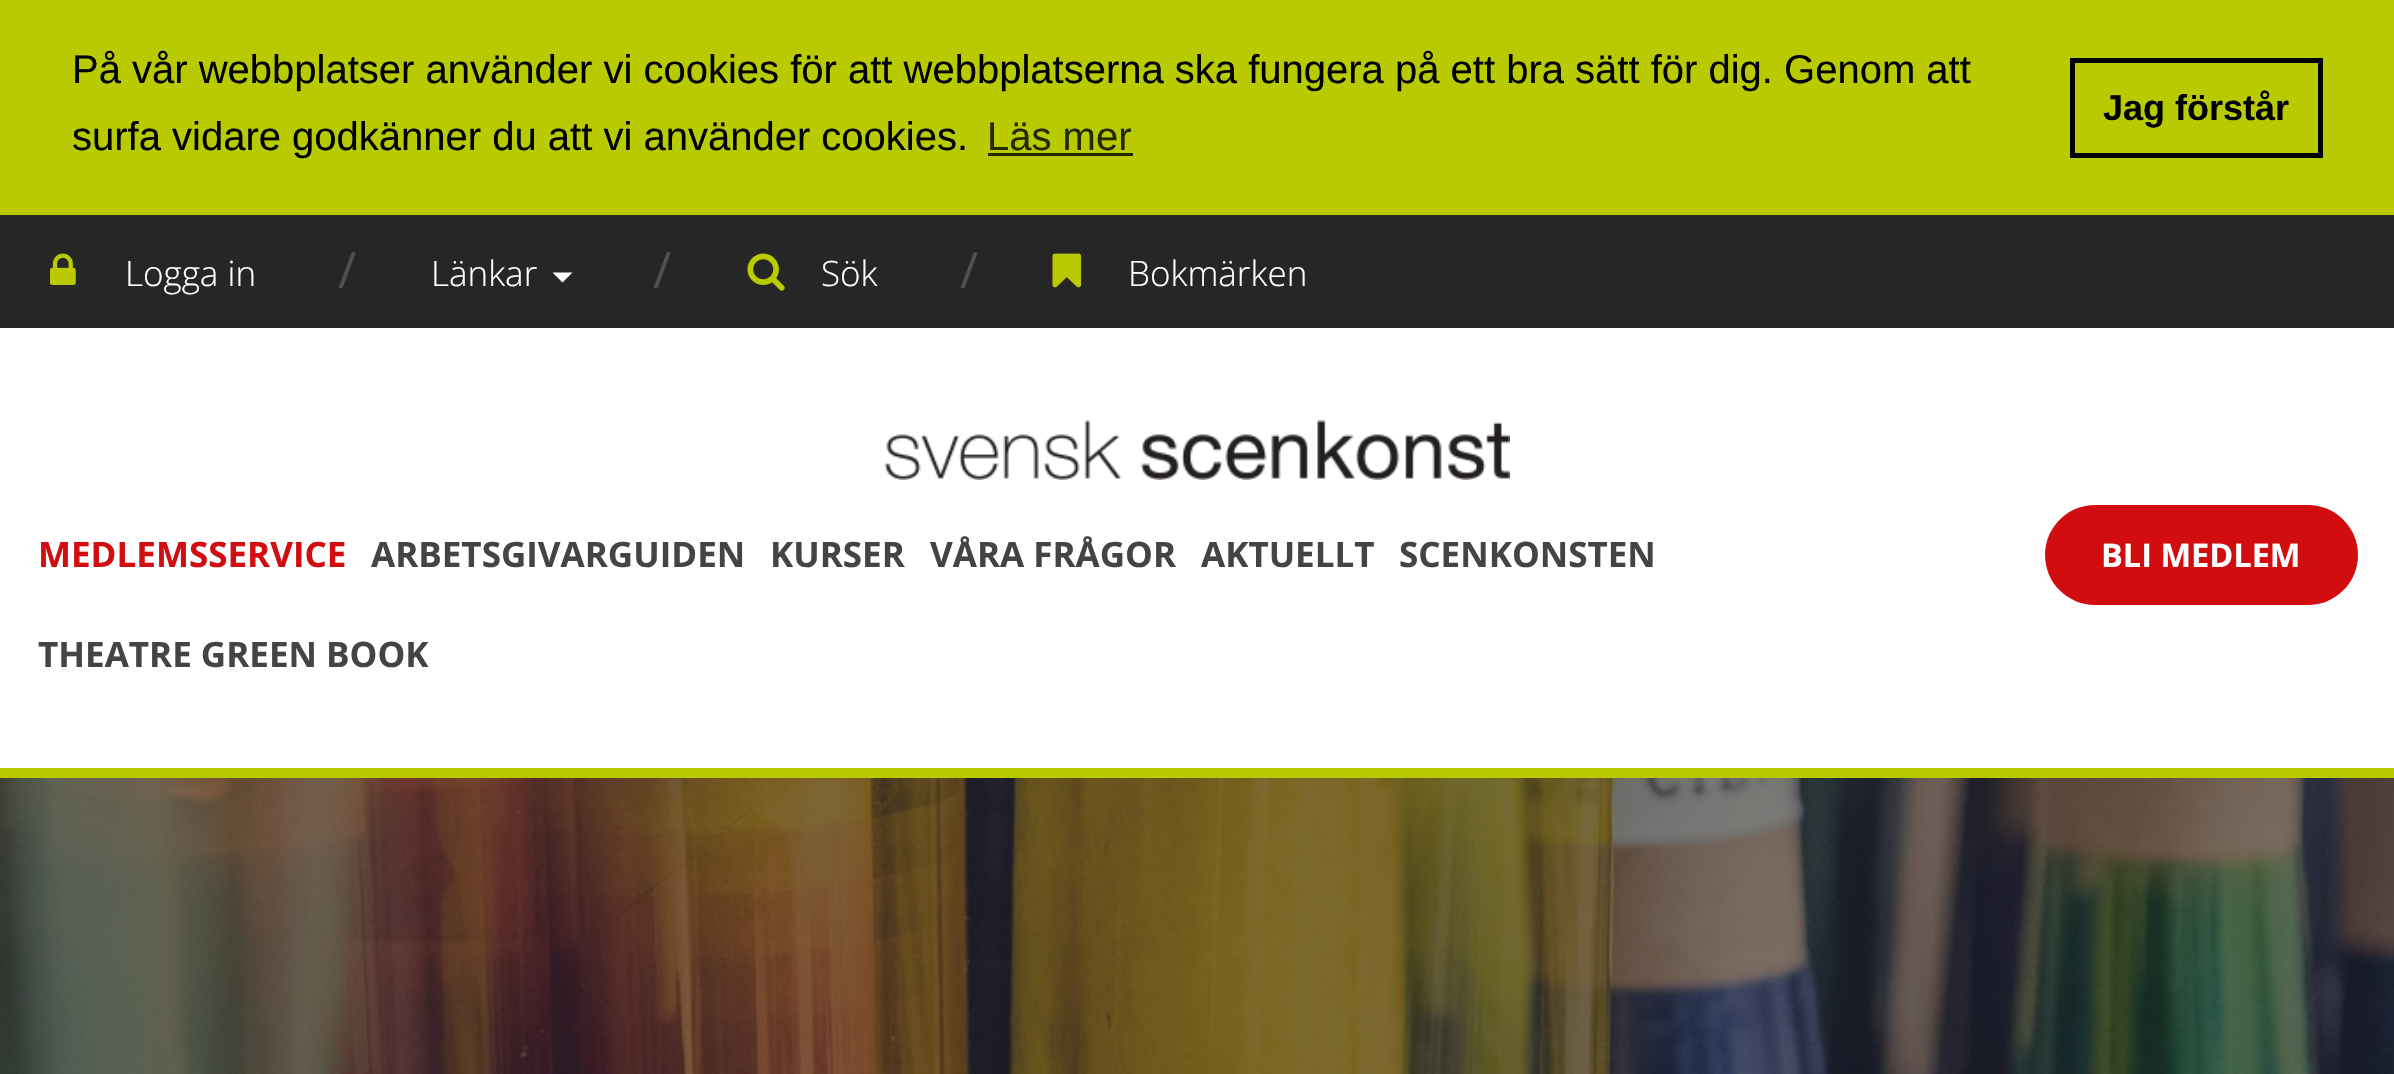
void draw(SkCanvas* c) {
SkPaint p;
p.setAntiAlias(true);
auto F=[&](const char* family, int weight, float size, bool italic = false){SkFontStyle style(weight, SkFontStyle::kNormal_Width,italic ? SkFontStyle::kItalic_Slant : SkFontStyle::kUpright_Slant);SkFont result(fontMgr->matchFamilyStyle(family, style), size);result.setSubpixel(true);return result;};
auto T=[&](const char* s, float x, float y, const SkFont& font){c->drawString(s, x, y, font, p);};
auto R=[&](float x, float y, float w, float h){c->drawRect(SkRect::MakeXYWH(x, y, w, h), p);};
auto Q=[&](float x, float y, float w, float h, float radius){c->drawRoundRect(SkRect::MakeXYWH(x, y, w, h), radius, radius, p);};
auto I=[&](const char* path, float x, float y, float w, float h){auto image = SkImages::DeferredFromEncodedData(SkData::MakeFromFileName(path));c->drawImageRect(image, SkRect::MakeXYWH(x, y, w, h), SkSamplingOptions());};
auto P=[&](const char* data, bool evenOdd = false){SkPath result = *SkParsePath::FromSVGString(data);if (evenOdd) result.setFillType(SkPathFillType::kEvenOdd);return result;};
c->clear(0xffffffff);
p.setColor(0xffb9cb00);
R(0,0,2394,215);
auto f1 = F("Liberation Sans",400,40);
p.setColor(0xff000000);
T("På vår webbplatser använder vi cookies för att webbplatserna ska fungera på ett bra sätt för dig. Genom att",72,83,f1);
T("surfa vidare godkänner du att vi använder cookies.",72,150,f1);
p.setColor(0xff252900);
T("Läs mer",987,150,f1);
R(988,153,145,3);
p.setStroke(true);
p.setStrokeWidth(5);
p.setColor(0xff000000);
c->drawRect(SkRect::MakeXYWH(2072.5,60.5,248,95),p);
auto f2 = F("Liberation Sans",700,36);
p.setStroke(false);
T("Jag förstår",2103,120,f2);
p.setColor(0xff262626);
R(0,215,2394,113);
p.setColor(0xffb9cb00);
R(0,768,2394,10);
I("1.png",50,253,26,32);
auto f3 = F("Open Sans",300,35);
p.setColor(0xffffffff);
T("Logga in",125,286,f3);
auto f4 = F("Open Sans",400,50);
p.setColor(0xff505050);
T("/",338,288,f4);
p.setColor(0xffffffff);
T("Länkar",431,286,f3);
c->drawPath(P("M552.5 272.5h20l-10 10z"),p);
p.setColor(0xff505050);
T("/",653,288,f4);
I("2.png",747,253,38,38);
p.setColor(0xffffffff);
T("Sök",821,286,f3);
p.setColor(0xff505050);
T("/",960,288,f4);
I("3.png",1052,253,30,35);
p.setColor(0xffffffff);
T("Bokmärken",1128,286,f3);
I("4.png",885,420,625,60);
auto f5 = F("Open Sans",700,35);
p.setColor(0xffd10d10);
T("MEDLEMSSERVICE",38,567,f5);
p.setColor(0xff444444);
T("ARBETSGIVARGUIDEN",371,567,f5);
T("KURSER",770,567,f5);
T("VÅRA FRÅGOR",930,567,f5);
T("AKTUELLT",1201,567,f5);
T("SCENKONSTEN",1399,567,f5);
T("THEATRE GREEN BOOK",38,667,f5);
p.setColor(0xffd10d10);
Q(2045,505,313,100,50);
auto f6 = F("Open Sans",700,32.5);
p.setColor(0xffffffff);
T("BLI MEDLEM",2101,567,f6);
I("5.png",0,778,2394,296);
}
